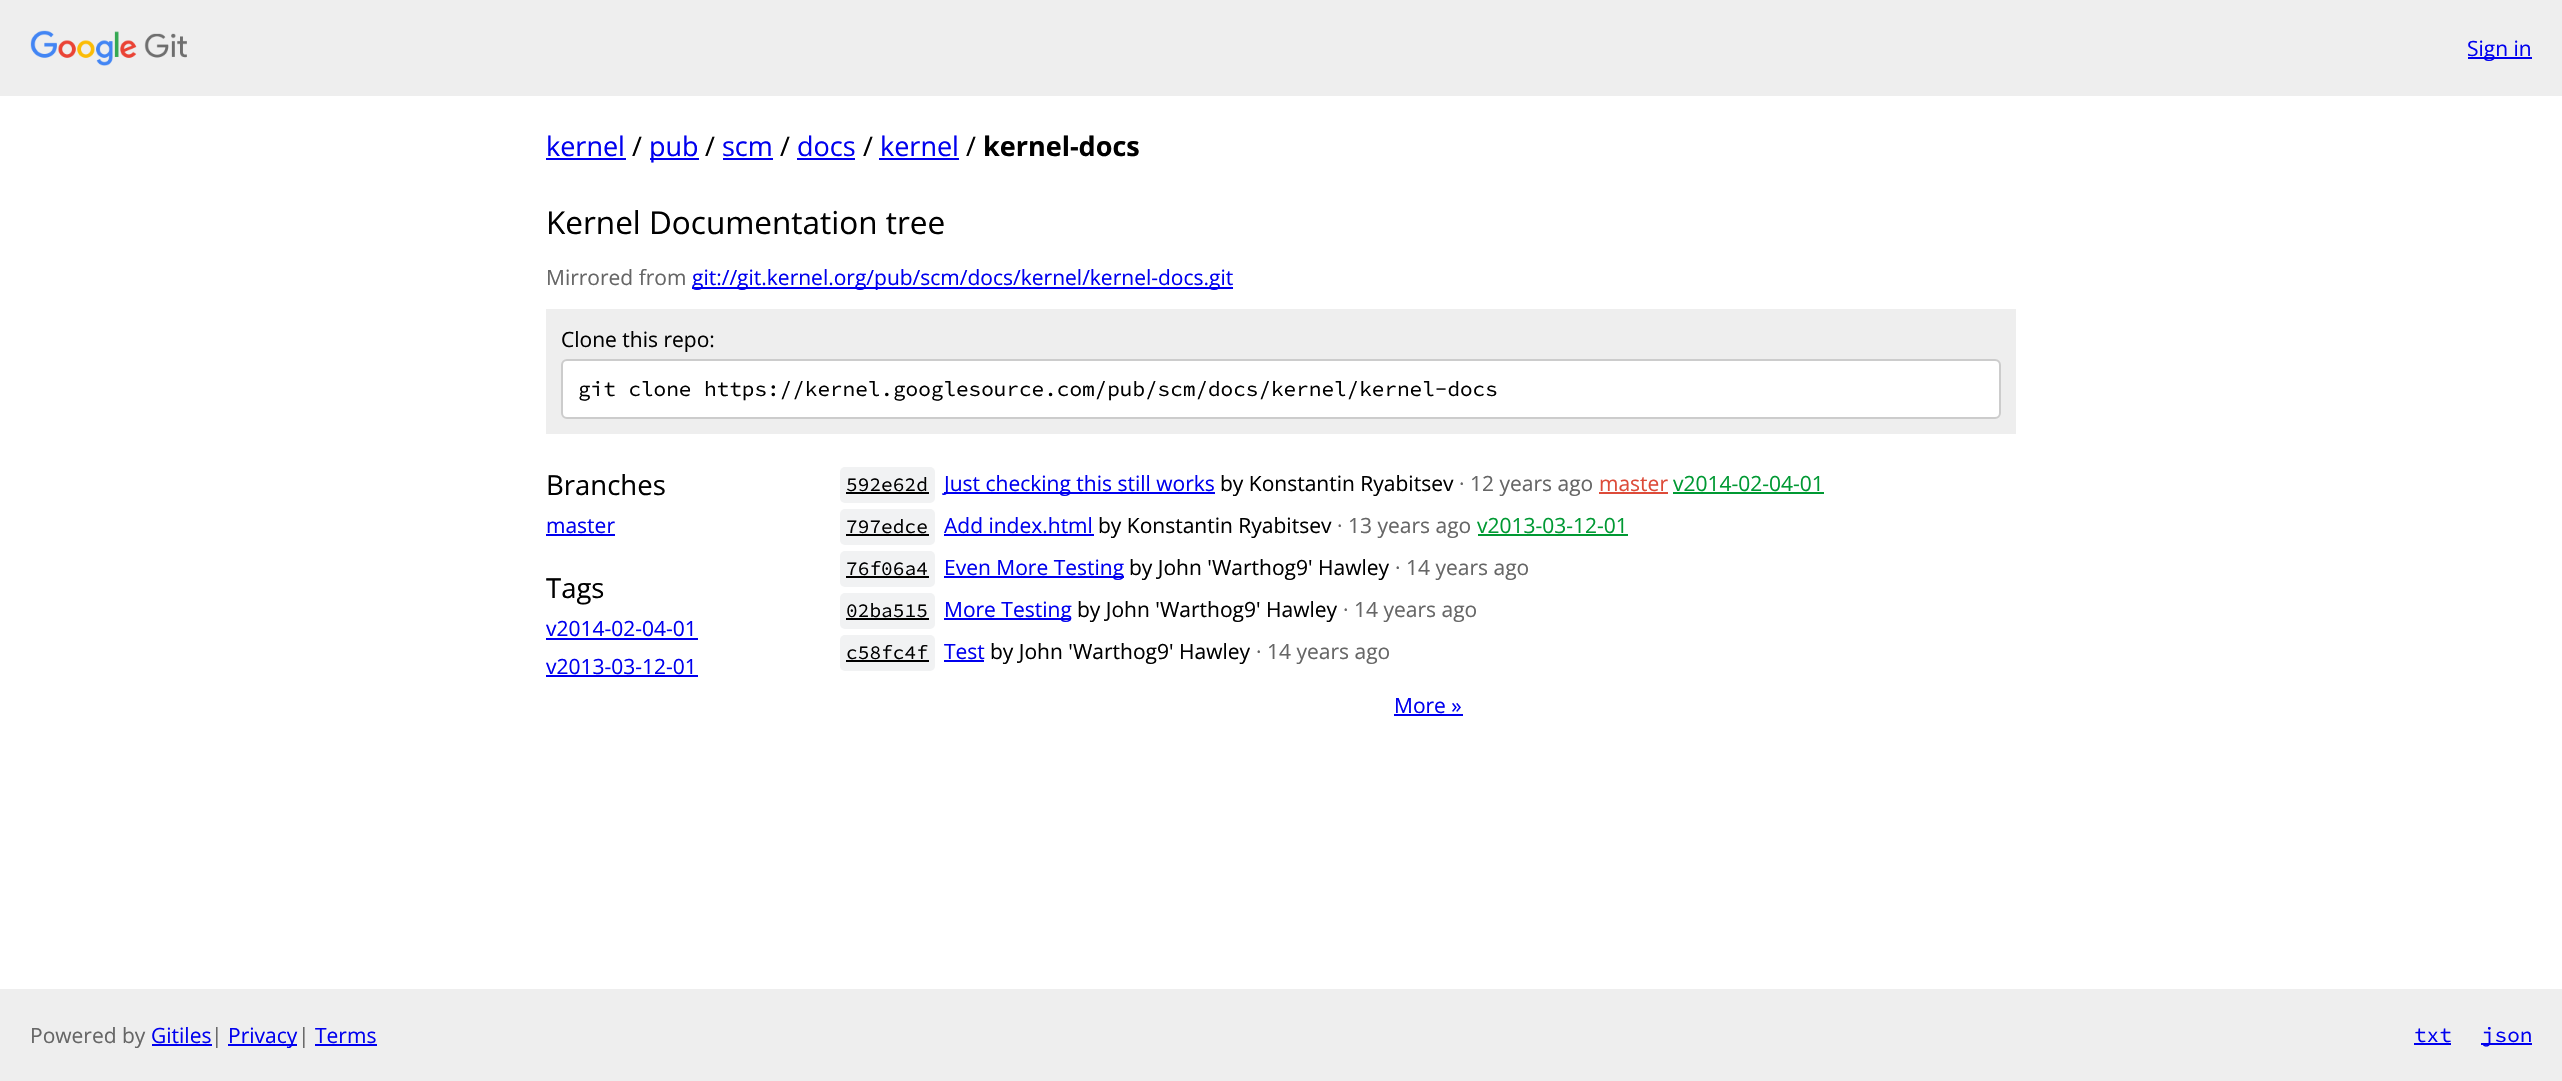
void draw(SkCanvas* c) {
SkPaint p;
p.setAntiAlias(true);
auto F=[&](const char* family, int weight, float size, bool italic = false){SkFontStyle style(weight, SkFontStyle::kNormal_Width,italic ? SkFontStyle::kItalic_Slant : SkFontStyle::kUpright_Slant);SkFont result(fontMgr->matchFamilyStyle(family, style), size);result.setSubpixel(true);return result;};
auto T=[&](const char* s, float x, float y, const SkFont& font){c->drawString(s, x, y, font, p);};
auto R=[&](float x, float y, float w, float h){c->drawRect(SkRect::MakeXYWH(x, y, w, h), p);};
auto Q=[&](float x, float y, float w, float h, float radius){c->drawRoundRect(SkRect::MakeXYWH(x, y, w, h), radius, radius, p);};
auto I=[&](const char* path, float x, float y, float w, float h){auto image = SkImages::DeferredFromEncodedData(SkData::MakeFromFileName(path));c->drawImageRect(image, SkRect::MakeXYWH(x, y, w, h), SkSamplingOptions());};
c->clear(0xffffffff);
p.setColor(0xffeeeeee);
R(0,0,2562,96);
I("1.png",30,30,157,36);
p.setColor(0xff0000ee);
R(2468,57,64,2);
auto f1 = F("Open Sans",400,21);
T("Sign in",2467,56,f1);
auto f2 = F("Open Sans",400,27);
T("kernel",546,156,f2);
R(546,158,80,2);
p.setColor(0xff000000);
T("/",632,156,f2);
p.setColor(0xff0000ee);
R(650,158,49,2);
T("pub",649,156,f2);
p.setColor(0xff000000);
T("/",705,156,f2);
p.setColor(0xff0000ee);
T("scm",722,156,f2);
R(723,158,50,2);
p.setColor(0xff000000);
T("/",780,156,f2);
p.setColor(0xff0000ee);
T("docs",797,156,f2);
R(797,158,58,2);
p.setColor(0xff000000);
T("/",863,156,f2);
p.setColor(0xff0000ee);
T("kernel",880,156,f2);
R(879,158,80,2);
p.setColor(0xff000000);
T("/",966,156,f2);
auto f3 = F("Open Sans",700,27);
T("kernel-docs",983,156,f3);
auto f4 = F("Open Sans",400,31.5);
T("Kernel Documentation tree",546,234,f4);
p.setColor(0xff666666);
T("Mirrored from",546,285,f1);
p.setColor(0xff0000ee);
R(692,287,541,2);
T("git://git.kernel.org/pub/scm/docs/kernel/kernel-docs.git",692,285,f1);
p.setColor(0xffeeeeee);
R(546,309,1470,125);
p.setColor(0xff000000);
T("Clone this repo:",561,347,f1);
p.setColor(0xffffffff);
c->drawRoundRect(SkRect::MakeXYWH(562,360,1438,58),5,5,p);
p.setStroke(true);
p.setStrokeWidth(2);
p.setColor(0xffcccccc);
c->drawRoundRect(SkRect::MakeXYWH(562,360,1438,58),5,5,p);
auto f5 = F("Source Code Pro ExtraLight",200,21);
p.setStroke(false);
p.setColor(0xff000000);
T("git clone https://kernel.googlesource.com/pub/scm/docs/kernel/kernel-docs",578,396,f5);
auto f6 = F("Open Sans",400,27.5);
T("Branches",546,495,f6);
p.setColor(0xff0000ee);
T("master",546,533,f1);
R(546,534,69,2);
p.setColor(0xff000000);
T("Tags",546,598,f6);
p.setColor(0xff0000ee);
T("v2014-02-04-01",546,636,f1);
R(546,638,152,2);
T("v2013-03-12-01",546,674,f1);
R(546,675,152,2);
p.setColor(0xfff1f2f3);
Q(840,467,95,36,5);
auto f7 = F("Source Code Pro ExtraLight",200,19.5);
p.setColor(0xff000000);
T("592e62d",846,491,f7);
R(846,492,83,2);
p.setColor(0xff0000ee);
R(944,492,271,2);
T("Just checking this still works",944,491,f1);
p.setColor(0xff000000);
T("by Konstantin Ryabitsev",1220,491,f1);
p.setColor(0xff666666);
T("· 12 years ago",1459,491,f1);
p.setColor(0xffdd4b39);
T("master",1599,491,f1);
R(1599,492,69,2);
p.setColor(0xff009933);
T("v2014-02-04-01",1673,491,f1);
R(1673,492,151,2);
p.setColor(0xfff1f2f3);
Q(840,509,95,36,5);
p.setColor(0xff000000);
T("797edce",846,533,f7);
R(846,534,83,2);
p.setColor(0xff0000ee);
T("Add index.html",944,533,f1);
R(944,534,150,2);
p.setColor(0xff000000);
T("by Konstantin Ryabitsev",1098,533,f1);
p.setColor(0xff666666);
T("· 13 years ago",1337,533,f1);
p.setColor(0xff009933);
T("v2013-03-12-01",1477,533,f1);
R(1478,534,150,2);
p.setColor(0xfff1f2f3);
Q(840,551,95,36,5);
p.setColor(0xff000000);
T("76f06a4",846,575,f7);
R(846,576,83,2);
p.setColor(0xff0000ee);
R(944,576,180,2);
T("Even More Testing",944,575,f1);
p.setColor(0xff000000);
T("by John 'Warthog9' Hawley",1129,575,f1);
p.setColor(0xff666666);
T("· 14 years ago",1395,575,f1);
p.setColor(0xfff1f2f3);
Q(840,593,95,36,5);
p.setColor(0xff000000);
T("02ba515",846,617,f7);
R(846,618,83,2);
p.setColor(0xff0000ee);
R(944,618,127,2);
T("More Testing",944,617,f1);
p.setColor(0xff000000);
T("by John 'Warthog9' Hawley",1077,617,f1);
p.setColor(0xff666666);
T("· 14 years ago",1343,617,f1);
p.setColor(0xfff1f2f3);
Q(840,635,95,36,5);
p.setColor(0xff000000);
T("c58fc4f",846,659,f7);
R(846,660,83,2);
p.setColor(0xff0000ee);
T("Test",944,659,f1);
R(944,660,40,2);
p.setColor(0xff000000);
T("by John 'Warthog9' Hawley",990,659,f1);
p.setColor(0xff666666);
T("· 14 years ago",1256,659,f1);
p.setColor(0xff0000ee);
T("More »",1394,713,f1);
R(1394,714,69,2);
p.setColor(0xffeeeeee);
R(0,989,2562,92);
p.setColor(0xff666666);
T("Powered by",30,1043,f1);
p.setColor(0xff0000ee);
T("Gitiles",151,1043,f1);
R(152,1044,60,2);
p.setColor(0xff666666);
T("|",211,1043,f1);
p.setColor(0xff0000ee);
R(228,1044,69,2);
T("Privacy",228,1043,f1);
p.setColor(0xff666666);
T("|",298,1043,f1);
p.setColor(0xff0000ee);
T("Terms",315,1043,f1);
R(315,1044,62,2);
T("txt",2414,1042,f5);
R(2414,1043,37,2);
R(2481,1043,51,2);
T("json",2482,1042,f5);
}
